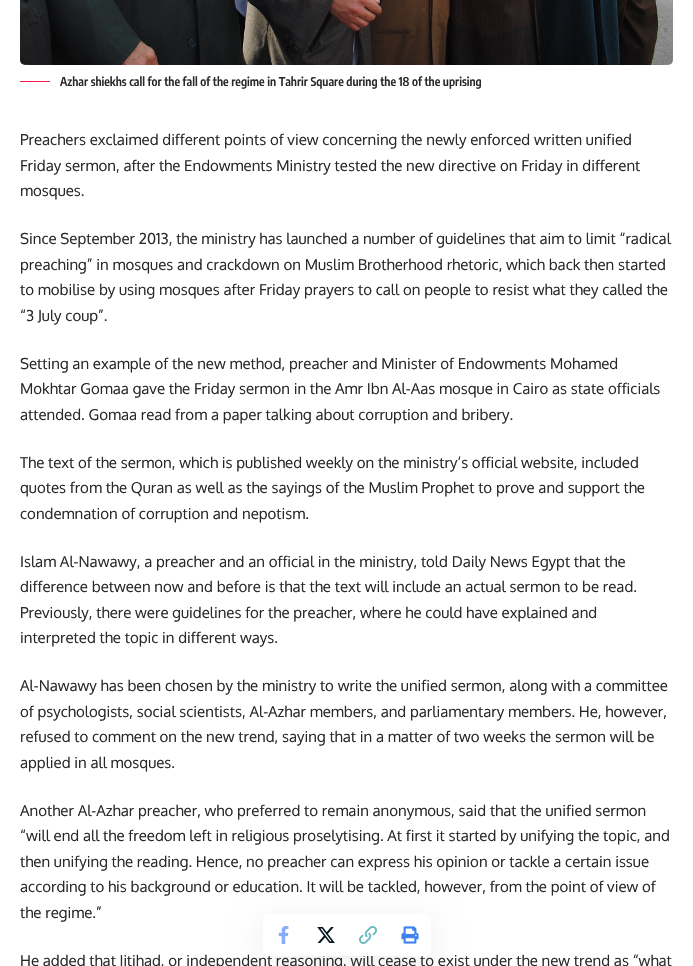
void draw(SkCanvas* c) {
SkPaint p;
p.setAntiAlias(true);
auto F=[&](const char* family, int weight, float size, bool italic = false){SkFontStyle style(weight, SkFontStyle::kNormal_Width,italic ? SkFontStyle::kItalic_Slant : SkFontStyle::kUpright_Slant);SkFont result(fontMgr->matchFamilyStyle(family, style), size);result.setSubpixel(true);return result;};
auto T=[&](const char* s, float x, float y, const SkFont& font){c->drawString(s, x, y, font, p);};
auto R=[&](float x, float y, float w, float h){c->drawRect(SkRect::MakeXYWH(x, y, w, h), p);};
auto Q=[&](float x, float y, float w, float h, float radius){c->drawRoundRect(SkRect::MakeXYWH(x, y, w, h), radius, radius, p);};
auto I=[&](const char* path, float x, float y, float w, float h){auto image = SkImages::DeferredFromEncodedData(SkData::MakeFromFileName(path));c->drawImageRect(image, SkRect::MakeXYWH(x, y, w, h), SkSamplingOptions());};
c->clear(0xffffffff);
I("1.png",20,0,653,65);
p.setColor(0xffff184e);
R(20,81,30,1);
auto f1 = F("Encode Sans Condensed",600,12);
p.setColor(0xff282828);
T("Azhar shiekhs call for the fall of the regime in Tahrir Square during the 18 of the uprising",60,86,f1);
auto f2 = F("Oxygen",400,15);
T("Preachers exclaimed different points of view concerning the newly enforced written unified",20,145,f2);
T("Friday sermon, after the Endowments Ministry tested the new directive on Friday in different",20,171,f2);
T("mosques.",20,196,f2);
T("Since September 2013, the ministry has launched a number of guidelines that aim to limit “radical",20,244,f2);
T("preaching” in mosques and crackdown on Muslim Brotherhood rhetoric, which back then started",20,270,f2);
T("to mobilise by using mosques after Friday prayers to call on people to resist what they called the",20,295,f2);
T("“3 July coup”.",20,321,f2);
T("Setting an example of the new method, preacher and Minister of Endowments Mohamed",20,369,f2);
T("Mokhtar Gomaa gave the Friday sermon in the Amr Ibn Al-Aas mosque in Cairo as state officials",20,394,f2);
T("attended. Gomaa read from a paper talking about corruption and bribery.",20,420,f2);
T("The text of the sermon, which is published weekly on the ministry’s official website, included",20,468,f2);
T("quotes from the Quran as well as the sayings of the Muslim Prophet to prove and support the",20,493,f2);
T("condemnation of corruption and nepotism.",20,519,f2);
T("Islam Al-Nawawy, a preacher and an official in the ministry, told Daily News Egypt that the",20,567,f2);
T("difference between now and before is that the text will include an actual sermon to be read.",20,592,f2);
T("Previously, there were guidelines for the preacher, where he could have explained and",20,618,f2);
T("interpreted the topic in different ways.",20,643,f2);
T("Al-Nawawy has been chosen by the ministry to write the unified sermon, along with a committee",20,691,f2);
T("of psychologists, social scientists, Al-Azhar members, and parliamentary members. He, however,",20,717,f2);
T("refused to comment on the new trend, saying that in a matter of two weeks the sermon will be",20,742,f2);
T("applied in all mosques.",20,768,f2);
T("Another Al-Azhar preacher, who preferred to remain anonymous, said that the unified sermon",20,816,f2);
T("“will end all the freedom left in religious proselytising. At first it started by unifying the topic, and",20,841,f2);
T("then unifying the reading. Hence, no preacher can express his opinion or tackle a certain issue",20,867,f2);
T("according to his background or education. It will be tackled, however, from the point of view of",20,892,f2);
T("the regime.”",20,918,f2);
T("He added that Ijtihad, or independent reasoning, will cease to exist under the new trend as “what",20,966,f2);
p.setColor(0x12000000);
p.setMaskFilter(SkMaskFilter::MakeBlur(kNormal_SkBlurStyle, 15));
c->drawRoundRect(SkRect::MakeXYWH(263,919,168,42),5,5,p);
p.setMaskFilter(nullptr);
p.setColor(0xffffffff);
Q(263,914,168,42,5);
I("2.png",278,926,11,18);
I("3.png",317,927,18,16);
I("4.png",359,926,18,18);
I("5.png",401,926,18,18);
}
